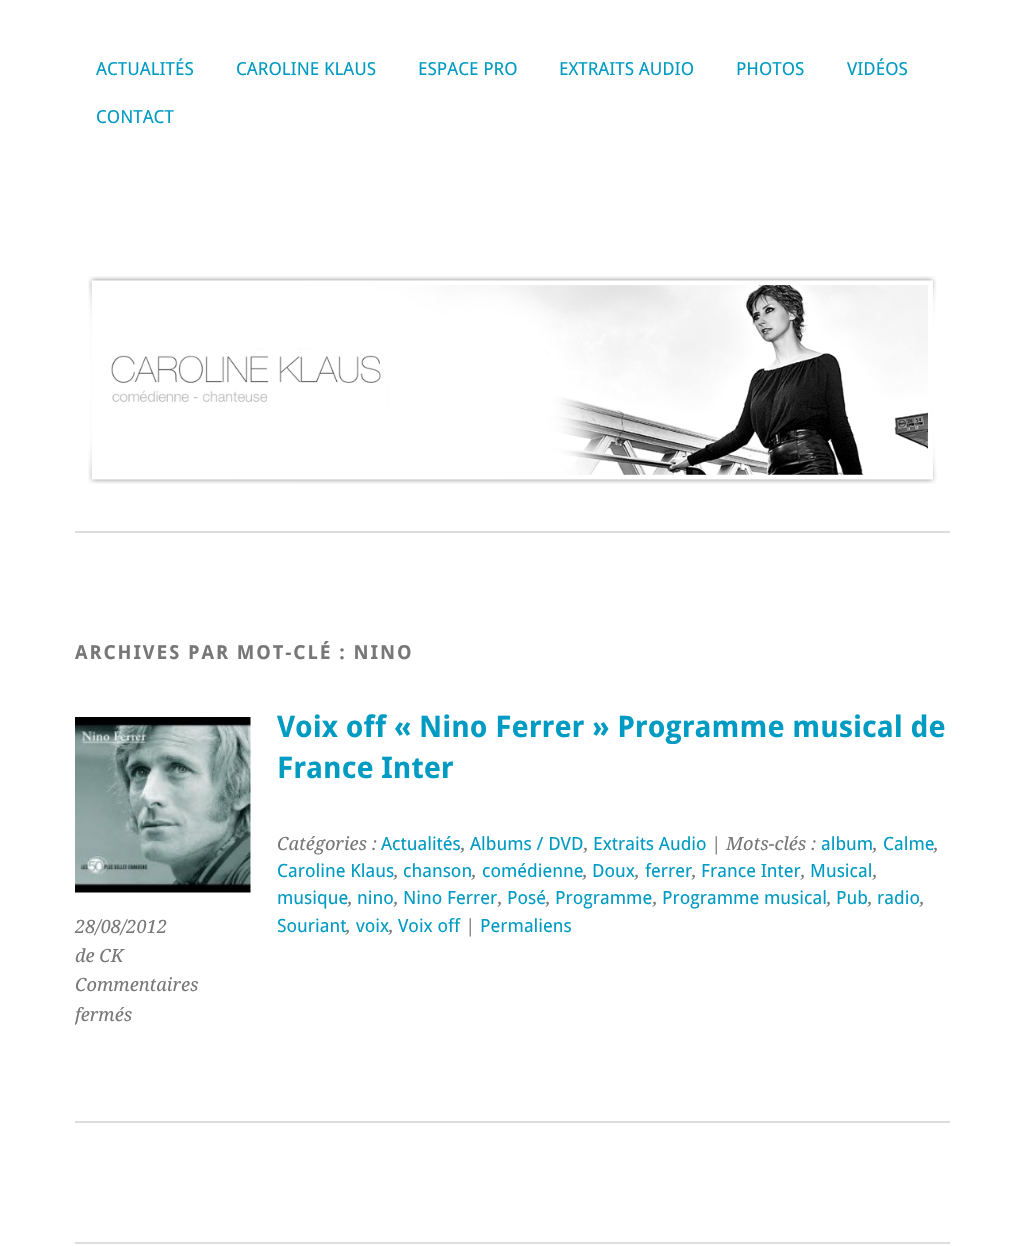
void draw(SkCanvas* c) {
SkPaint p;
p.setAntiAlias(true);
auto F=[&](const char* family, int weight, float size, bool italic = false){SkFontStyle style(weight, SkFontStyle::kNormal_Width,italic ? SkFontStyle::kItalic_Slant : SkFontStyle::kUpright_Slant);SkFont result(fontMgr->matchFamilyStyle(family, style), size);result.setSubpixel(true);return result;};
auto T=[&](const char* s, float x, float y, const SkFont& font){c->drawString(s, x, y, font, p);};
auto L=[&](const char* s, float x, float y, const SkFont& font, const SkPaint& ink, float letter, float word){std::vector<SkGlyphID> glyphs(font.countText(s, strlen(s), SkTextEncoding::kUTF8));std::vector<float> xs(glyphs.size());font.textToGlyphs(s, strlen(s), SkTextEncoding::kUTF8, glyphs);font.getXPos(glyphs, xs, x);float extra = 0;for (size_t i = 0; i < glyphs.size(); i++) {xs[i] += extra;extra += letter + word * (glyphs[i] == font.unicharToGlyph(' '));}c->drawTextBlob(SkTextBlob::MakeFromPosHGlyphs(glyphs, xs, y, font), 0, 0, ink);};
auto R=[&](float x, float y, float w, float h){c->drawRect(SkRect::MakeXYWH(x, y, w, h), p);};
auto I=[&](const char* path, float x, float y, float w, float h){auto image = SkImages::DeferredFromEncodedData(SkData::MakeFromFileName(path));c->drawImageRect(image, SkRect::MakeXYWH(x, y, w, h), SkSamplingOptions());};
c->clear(0xffffffff);
auto f1 = F("Droid Sans",400,18);
p.setColor(0xff009bc2);
T("ACTUALITÉS",96,75,f1);
T("CAROLINE KLAUS",236,75,f1);
T("ESPACE PRO",418,75,f1);
T("EXTRAITS AUDIO",559,75,f1);
T("PHOTOS",736,75,f1);
T("VIDÉOS",847,75,f1);
T("CONTACT",96,123,f1);
I("1.png",88,276,849,208);
p.setColor(0xffdddddd);
R(75,531,875,2);
auto f2 = F("Droid Sans",700,19.25);
p.setColor(0xff777777);
L("ARCHIVES PAR MOT-CLÉ : NINO",75,659,f2,p,1.9,0);
p.setColor(0xffdddddd);
R(75,1121,875,2);
auto f3 = F("Droid Sans",700,29.6);
p.setColor(0xff009bc2);
T("Voix off « Nino Ferrer » Programme musical de",277,737,f3);
T("France Inter",277,778,f3);
auto f4 = F("Droid Serif",400,18.25,true);
p.setColor(0xff777777);
T("Catégories :",277,850,f4);
auto f5 = F("Droid Sans",400,18.25);
p.setColor(0xff009bc2);
T("Actualités",381,850,f5);
p.setColor(0xff777777);
T(",",461,850,f4);
p.setColor(0xff009bc2);
T("Albums / DVD",470,850,f5);
p.setColor(0xff777777);
T(",",584,850,f4);
p.setColor(0xff009bc2);
T("Extraits Audio",593,850,f5);
p.setColor(0xff777777);
T("| Mots-clés :",711,850,f4);
p.setColor(0xff009bc2);
T("album",821,850,f5);
p.setColor(0xff777777);
T(",",873,850,f4);
p.setColor(0xff009bc2);
T("Calme",883,850,f5);
p.setColor(0xff777777);
T(",",934,850,f4);
p.setColor(0xff009bc2);
T("Caroline Klaus",277,877,f5);
p.setColor(0xff777777);
T(",",394,877,f4);
p.setColor(0xff009bc2);
T("chanson",403,877,f5);
p.setColor(0xff777777);
T(",",472,877,f4);
p.setColor(0xff009bc2);
T("comédienne",482,877,f5);
p.setColor(0xff777777);
T(",",583,877,f4);
p.setColor(0xff009bc2);
T("Doux",592,877,f5);
p.setColor(0xff777777);
T(",",635,877,f4);
p.setColor(0xff009bc2);
T("ferrer",645,877,f5);
p.setColor(0xff777777);
T(",",692,877,f4);
p.setColor(0xff009bc2);
T("France Inter",701,877,f5);
p.setColor(0xff777777);
T(",",801,877,f4);
p.setColor(0xff009bc2);
T("Musical",810,877,f5);
p.setColor(0xff777777);
T(",",873,877,f4);
p.setColor(0xff009bc2);
T("musique",277,904,f5);
p.setColor(0xff777777);
T(",",348,904,f4);
p.setColor(0xff009bc2);
T("nino",357,904,f5);
p.setColor(0xff777777);
T(",",394,904,f4);
p.setColor(0xff009bc2);
T("Nino Ferrer",403,904,f5);
p.setColor(0xff777777);
T(",",498,904,f4);
p.setColor(0xff009bc2);
T("Posé",507,904,f5);
p.setColor(0xff777777);
T(",",546,904,f4);
p.setColor(0xff009bc2);
T("Programme",555,904,f5);
p.setColor(0xff777777);
T(",",653,904,f4);
p.setColor(0xff009bc2);
T("Programme musical",662,904,f5);
p.setColor(0xff777777);
T(",",827,904,f4);
p.setColor(0xff009bc2);
T("Pub",836,904,f5);
p.setColor(0xff777777);
T(",",868,904,f4);
p.setColor(0xff009bc2);
T("radio",877,904,f5);
p.setColor(0xff777777);
T(",",920,904,f4);
p.setColor(0xff009bc2);
T("Souriant",277,932,f5);
p.setColor(0xff777777);
T(",",346,932,f4);
p.setColor(0xff009bc2);
T("voix",356,932,f5);
p.setColor(0xff777777);
T(",",389,932,f4);
p.setColor(0xff009bc2);
T("Voix off",398,932,f5);
p.setColor(0xff777777);
T("|",465,932,f4);
p.setColor(0xff009bc2);
T("Permaliens",480,932,f5);
I("2.png",75,717,176,176);
p.setColor(0xff777777);
T("28/08/2012",75,933,f4);
T("de CK",75,962,f4);
T("Commentaires",75,991,f4);
c->save();
c->clipRect(SkRect::MakeXYWH(75,707,875,414));
T("fermés",75,1021,f4);
c->restore();
p.setColor(0xffdddddd);
R(75,1242,875,2);
}
